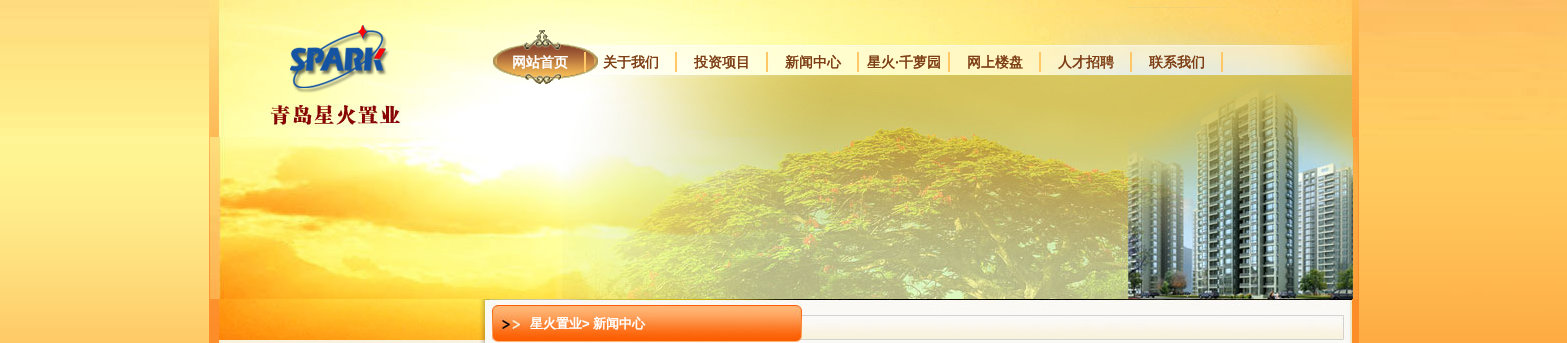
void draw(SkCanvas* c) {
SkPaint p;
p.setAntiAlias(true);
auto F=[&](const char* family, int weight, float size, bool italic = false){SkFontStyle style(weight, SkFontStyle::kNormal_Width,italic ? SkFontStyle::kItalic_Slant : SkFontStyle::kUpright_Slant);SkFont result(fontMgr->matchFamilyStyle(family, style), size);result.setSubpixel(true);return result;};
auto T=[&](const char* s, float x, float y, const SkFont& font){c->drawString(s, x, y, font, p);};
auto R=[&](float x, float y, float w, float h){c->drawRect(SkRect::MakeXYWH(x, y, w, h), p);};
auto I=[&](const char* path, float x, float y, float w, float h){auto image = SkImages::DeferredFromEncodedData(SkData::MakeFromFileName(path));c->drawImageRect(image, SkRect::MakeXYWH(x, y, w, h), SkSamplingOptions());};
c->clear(0xffffffff);
I("1.png",0,0,1567,343);
I("2.png",209,0,276,137);
I("3.png",290,25,99,68);
I("4.png",485,0,874,137);
I("5.png",493,30,105,54);
p.setColor(0xffffc766);
R(584,52,2,20);
auto f1 = F("WenQuanYi Zen Hei",700,14);
p.setColor(0xffffffff);
T("网站首页",512,67,f1);
p.setColor(0xffffc766);
R(675,52,2,20);
p.setColor(0xff7e3e15);
T("关于我们",603,67,f1);
p.setColor(0xffffc766);
R(766,52,2,20);
p.setColor(0xff7e3e15);
T("投资项目",694,67,f1);
p.setColor(0xffffc766);
R(857,52,2,20);
p.setColor(0xff7e3e15);
T("新闻中心",785,67,f1);
p.setColor(0xffffc766);
R(948,52,2,20);
p.setColor(0xff7e3e15);
T("星火",867,67,f1);
auto f2 = F("Liberation Sans",700,14);
T("·",895,67,f2);
T("千萝园",899,67,f1);
p.setColor(0xffffc766);
R(1039,52,2,20);
p.setColor(0xff7e3e15);
T("网上楼盘",967,67,f1);
p.setColor(0xffffc766);
R(1130,52,2,20);
p.setColor(0xff7e3e15);
T("人才招聘",1058,67,f1);
p.setColor(0xffffc766);
R(1221,52,2,20);
p.setColor(0xff7e3e15);
T("联系我们",1149,67,f1);
I("6.png",209,137,1150,162);
I("7.png",1354,299,5,44);
I("8.png",209,299,281,44);
I("9.png",490,299,864,44);
auto f3 = F("WenQuanYi Zen Hei",700,13);
p.setColor(0xffffffff);
T("星火置业",530,328,f3);
auto f4 = F("Liberation Sans",700,13);
T(">",582,328,f4);
T("新闻中心",593,328,f3);
}
